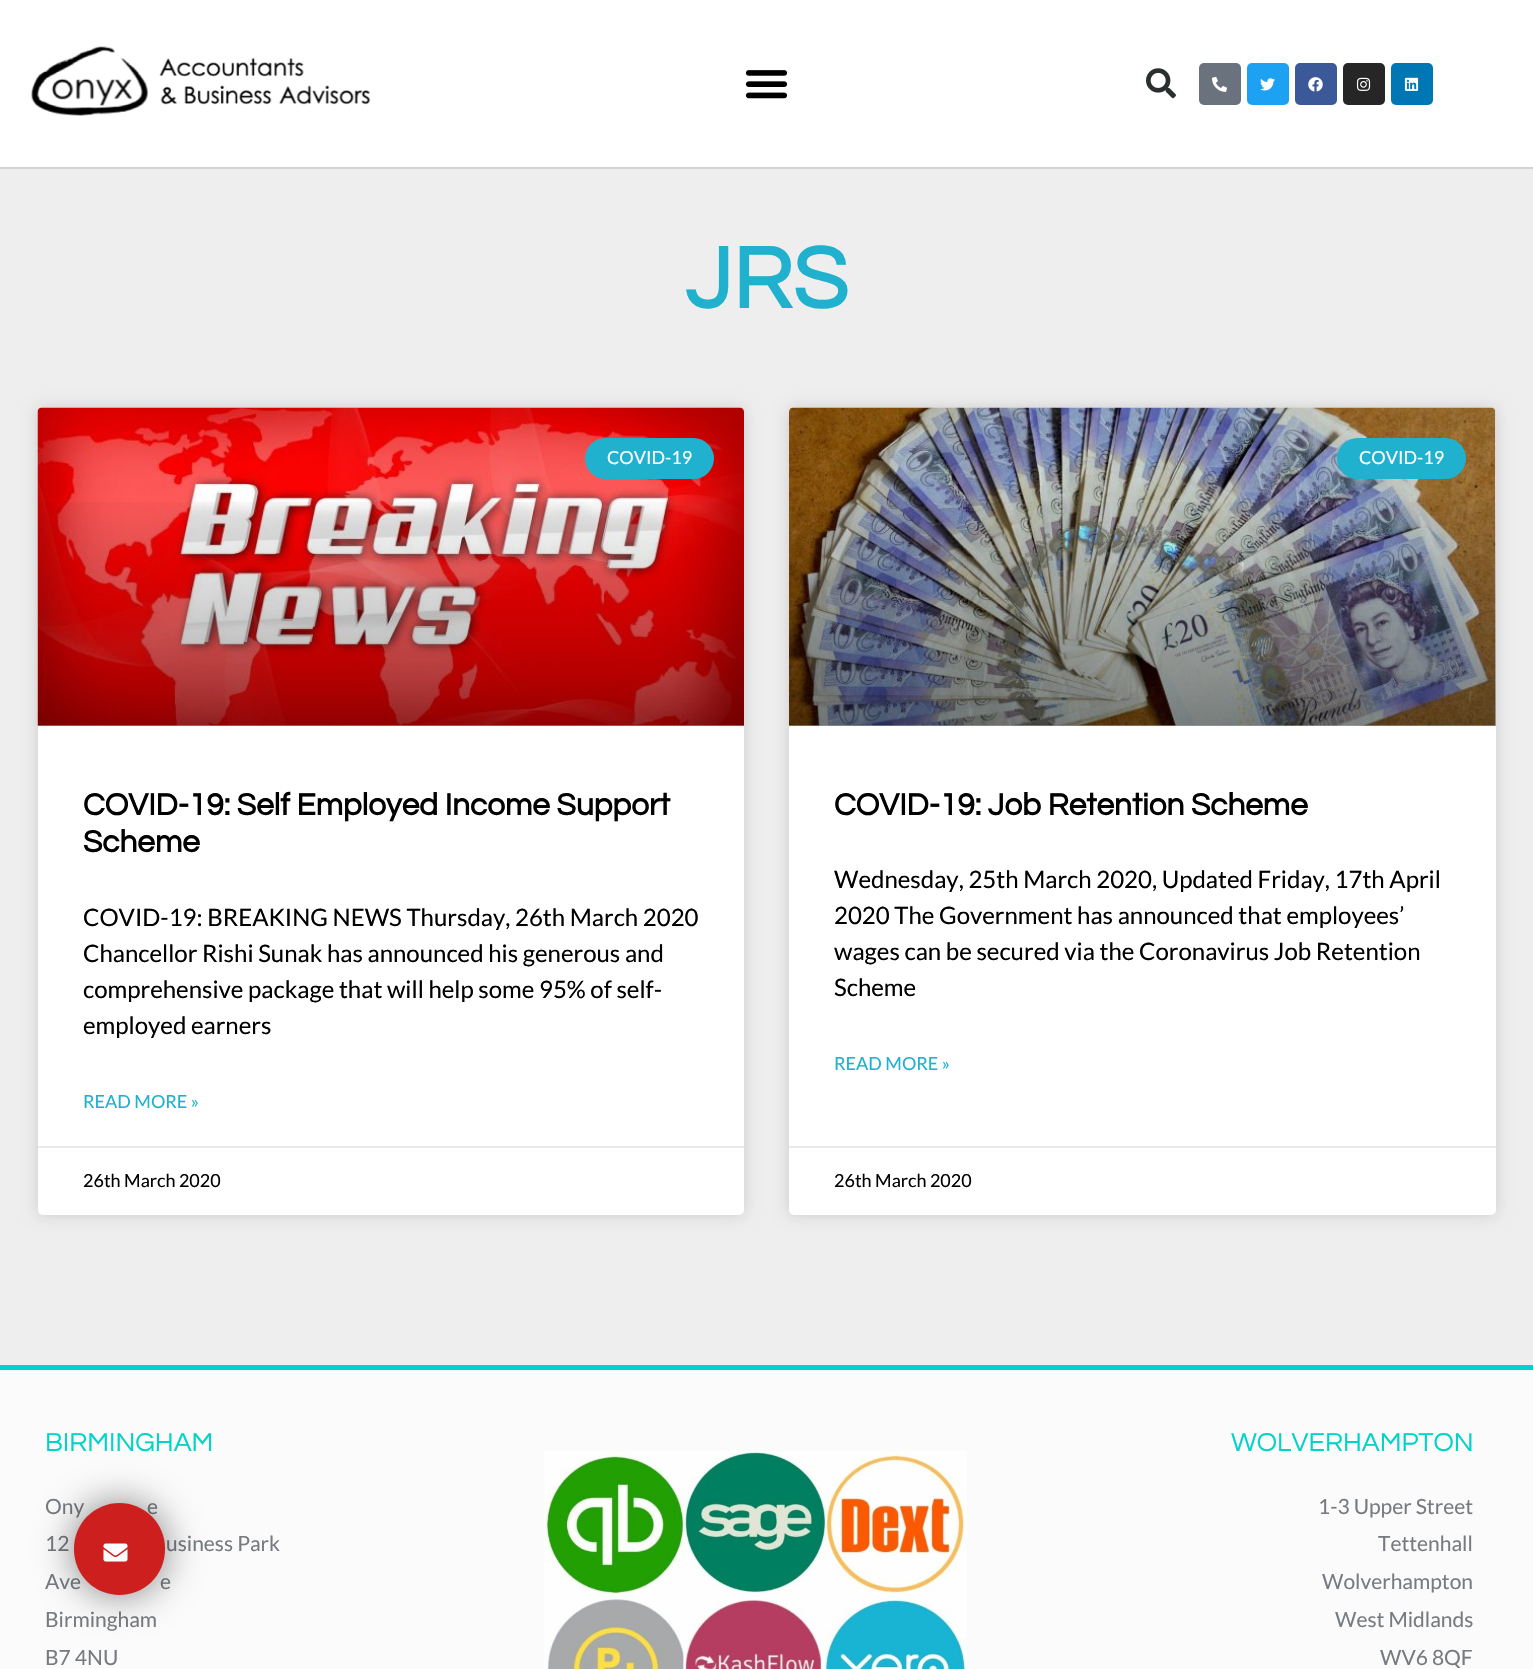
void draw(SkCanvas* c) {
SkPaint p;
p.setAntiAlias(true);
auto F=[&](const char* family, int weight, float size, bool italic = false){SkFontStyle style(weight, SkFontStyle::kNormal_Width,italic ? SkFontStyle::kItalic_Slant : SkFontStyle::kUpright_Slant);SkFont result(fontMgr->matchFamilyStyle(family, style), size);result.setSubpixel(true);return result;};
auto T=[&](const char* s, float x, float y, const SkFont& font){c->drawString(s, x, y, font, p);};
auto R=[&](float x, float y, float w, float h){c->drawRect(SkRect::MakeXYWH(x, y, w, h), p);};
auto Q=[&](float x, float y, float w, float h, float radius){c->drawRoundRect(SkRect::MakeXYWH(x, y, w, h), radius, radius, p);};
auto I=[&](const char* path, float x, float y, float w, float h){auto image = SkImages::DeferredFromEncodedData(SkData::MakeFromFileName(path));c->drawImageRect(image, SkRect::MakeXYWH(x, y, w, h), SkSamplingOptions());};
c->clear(0xffeeeeee);
p.setColor(0xffffffff);
R(0,0,1533,167);
p.setColor(0xffd3d3d3);
R(0,167,1533,2);
I("1.png",31,46,340,70);
I("2.png",745,70,43,29);
I("3.png",1146,68,30,31);
p.setColor(0xff69727d);
Q(1199,63,42,42,5);
I("4.png",1212,76,15,16);
p.setColor(0xff1da1f2);
Q(1247,63,42,42,5);
I("5.png",1260,78,15,13);
p.setColor(0xff3b5998);
Q(1295,63,42,42,5);
I("6.png",1308,77,15,15);
p.setColor(0xff262626);
Q(1343,63,42,42,5);
I("7.png",1356,77,15,14);
p.setColor(0xff0077b5);
Q(1391,63,42,42,5);
I("8.png",1404,77,15,14);
auto f1 = F("Questrial",700,90);
p.setColor(0xff1fb1ce);
T("JRS",685,308,f1);
p.setColor(0x26000000);
p.setMaskFilter(SkMaskFilter::MakeBlur(kNormal_SkBlurStyle, 7.5));
c->drawRoundRect(SkRect::MakeXYWH(38,408,706,807),5,5,p);
p.setMaskFilter(nullptr);
p.setColor(0xffffffff);
Q(38,408,706,807,5);
I("9.png",37,407,707,319);
{
const SkColor colors[] = {0x59000000,0x00000000};
const float stops[] = {0,.75};
const SkPoint ends[] = {{391,726}, {391,408}};
p.setShader(SkGradientShader::MakeLinear(ends, colors, stops, 2, SkTileMode::kClamp));
p.setAlpha(255);
}
R(38,502,706,224);
p.setShader(nullptr);
p.setColor(0xff1fb1ce);
Q(585,438,129,41,20.5);
auto f2 = F("Lato",400,18);
p.setColor(0xffffffff);
T("COVID-19",607,464,f2);
auto f3 = F("Questrial",700,31.5);
p.setColor(0xff000000);
T("COVID-19: Self Employed Income Support",83,815,f3);
T("Scheme",83,852,f3);
auto f4 = F("Lato",400,24);
T("COVID-19: BREAKING NEWS Thursday, 26th March 2020",83,926,f4);
T("Chancellor Rishi Sunak has announced his generous and",83,962,f4);
T("comprehensive package that will help some 95% of self-",83,998,f4);
T("employed earners",83,1034,f4);
p.setColor(0xff1fb1ce);
T("READ MORE »",83,1108,f2);
p.setColor(0xffeaeaea);
R(38,1146,706,2);
p.setColor(0xff000000);
T("26th March 2020",83,1187,f2);
p.setColor(0x26000000);
p.setMaskFilter(SkMaskFilter::MakeBlur(kNormal_SkBlurStyle, 7.5));
c->drawRoundRect(SkRect::MakeXYWH(789,408,707,807),5,5,p);
p.setMaskFilter(nullptr);
p.setColor(0xffffffff);
Q(789,408,707,807,5);
I("10.png",789,407,707,319);
{
const SkColor colors[] = {0x59000000,0x00000000};
const float stops[] = {0,.75};
const SkPoint ends[] = {{1142,726}, {1142,408}};
p.setShader(SkGradientShader::MakeLinear(ends, colors, stops, 2, SkTileMode::kClamp));
p.setAlpha(255);
}
R(789,502,707,224);
p.setShader(nullptr);
p.setColor(0xff1fb1ce);
Q(1337,438,129,41,20.5);
p.setColor(0xffffffff);
T("COVID-19",1359,464,f2);
p.setColor(0xff000000);
T("COVID-19: Job Retention Scheme",834,815,f3);
T("Wednesday, 25th March 2020, Updated Friday, 17th April",834,888,f4);
T("2020 The Government has announced that employees’",834,924,f4);
T("wages can be secured via the Coronavirus Job Retention",834,960,f4);
T("Scheme",834,996,f4);
p.setColor(0xff1fb1ce);
T("READ MORE »",834,1070,f2);
p.setColor(0xffeaeaea);
R(789,1146,707,2);
p.setColor(0xff000000);
T("26th March 2020",834,1187,f2);
p.setColor(0xfffbfbfb);
R(0,1370,1533,299);
p.setColor(0xff02d3c9);
R(0,1365,1533,5);
auto f5 = F("Questrial",400,27);
T("BIRMINGHAM",45,1451,f5);
auto f6 = F("Lato",400,21);
p.setColor(0xff777b80);
T("Ony",45,1514,f6);
T("e",147,1514,f6);
T("12",45,1551,f6);
T("usiness Park",166,1551,f6);
T("Ave",45,1589,f6);
T("e",160,1589,f6);
T("Birmingham",45,1627,f6);
T("B7 4NU",45,1665,f6);
I("11.png",544,1451,423,218);
p.setColor(0xff02d3c9);
T("WOLVERHAMPTON",1231,1451,f5);
p.setColor(0x80000000);
p.setMaskFilter(SkMaskFilter::MakeBlur(kNormal_SkBlurStyle, 19));
c->drawRoundRect(SkRect::MakeXYWH(74,1503,91,92),45.5,45.5,p);
p.setMaskFilter(nullptr);
p.setColor(0xffce1f1f);
Q(74,1503,91,92,45.5);
I("12.png",103,1543,25,19);
p.setColor(0xff777b80);
T("1-3 Upper Street",1318,1514,f6);
T("Tettenhall",1378,1551,f6);
T("Wolverhampton",1322,1589,f6);
T("West Midlands",1335,1627,f6);
T("WV6 8QF",1380,1665,f6);
}
